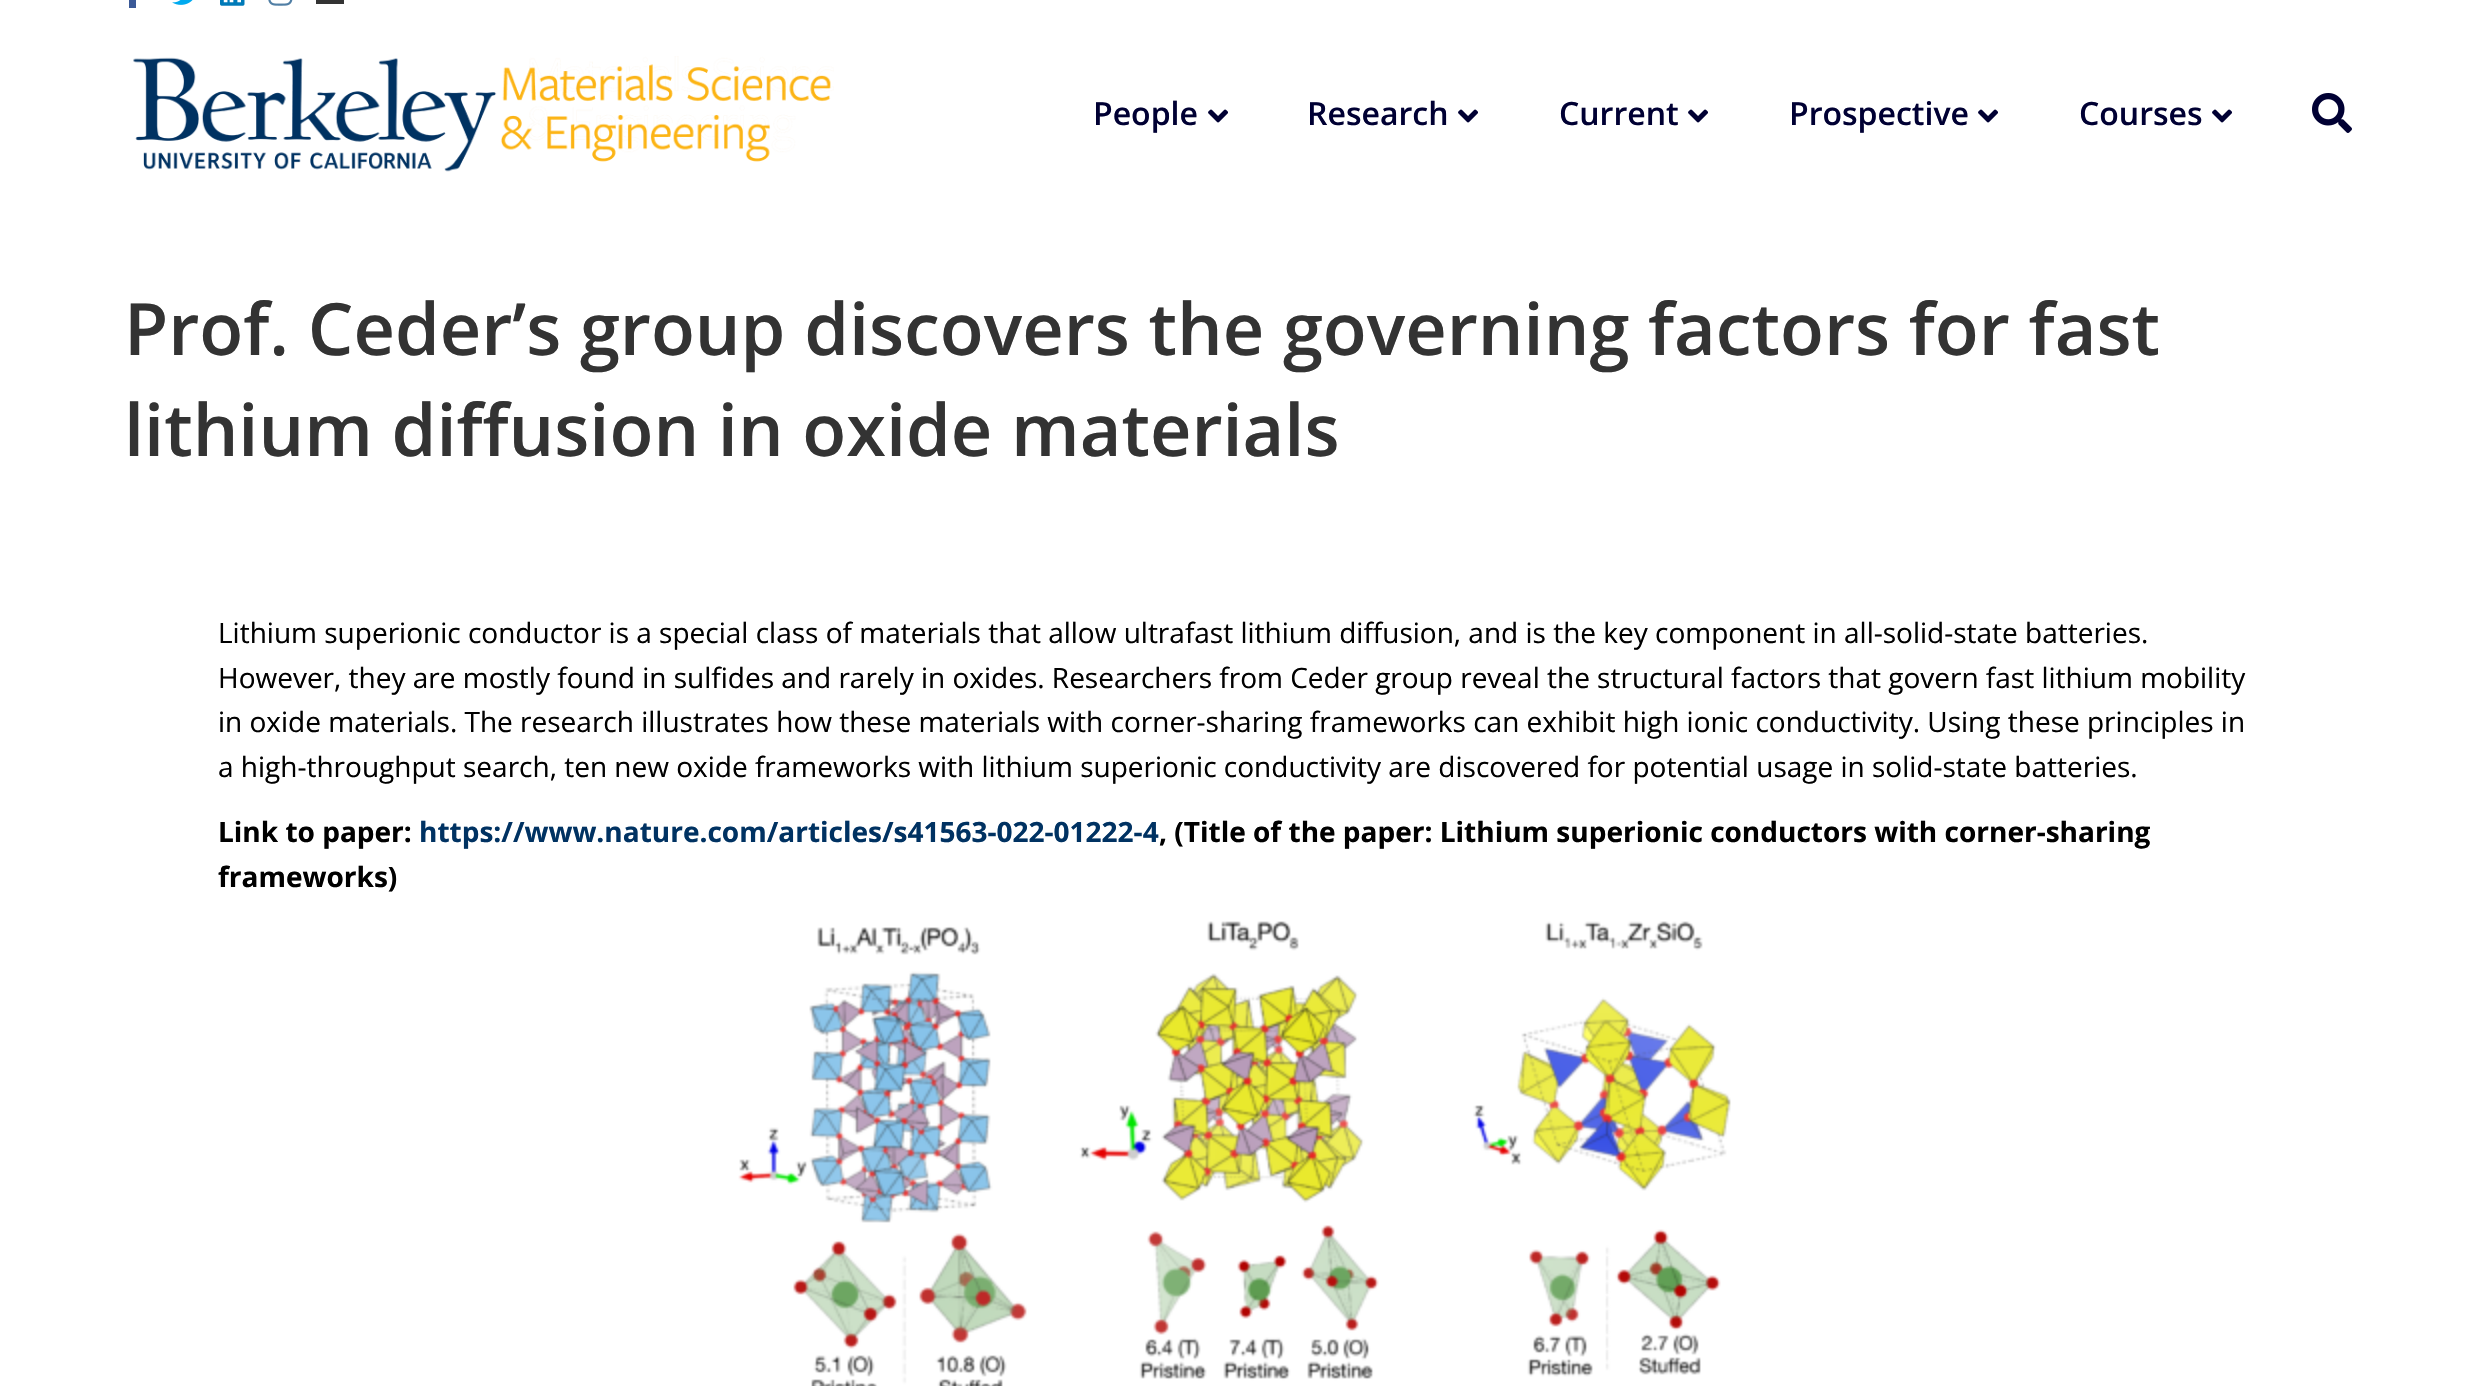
void draw(SkCanvas* c) {
SkPaint p;
p.setAntiAlias(true);
auto F=[&](const char* family, int weight, float size, bool italic = false){SkFontStyle style(weight, SkFontStyle::kNormal_Width,italic ? SkFontStyle::kItalic_Slant : SkFontStyle::kUpright_Slant);SkFont result(fontMgr->matchFamilyStyle(family, style), size);result.setSubpixel(true);return result;};
auto T=[&](const char* s, float x, float y, const SkFont& font){c->drawString(s, x, y, font, p);};
auto R=[&](float x, float y, float w, float h){c->drawRect(SkRect::MakeXYWH(x, y, w, h), p);};
auto I=[&](const char* path, float x, float y, float w, float h){auto image = SkImages::DeferredFromEncodedData(SkData::MakeFromFileName(path));c->drawImageRect(image, SkRect::MakeXYWH(x, y, w, h), SkSamplingOptions());};
c->clear(0xffffffff);
p.setColor(0xff3b5997);
R(129,0,7,8);
I("1.png",172,0,21,5);
I("2.png",220,0,25,6);
I("3.png",268,0,25,6);
p.setColor(0xff333333);
R(316,0,28,4);
I("4.png",133,56,701,116);
auto f1 = F("Open Sans",600,32);
p.setColor(0xff000033);
T("People",1093,125,f1);
I("5.png",1208,109,20,14);
T("Research",1307,125,f1);
I("5.png",1458,109,20,14);
T("Current",1559,125,f1);
I("5.png",1688,109,20,14);
T("Prospective",1789,125,f1);
I("5.png",1978,109,20,14);
T("Courses",2079,125,f1);
I("5.png",2212,109,20,14);
I("6.png",2312,93,40,40);
auto f2 = F("Open Sans",600,72);
p.setColor(0xff333333);
T("Prof. Ceder’s group discovers the governing factors for fast",124,355,f2);
T("lithium diffusion in oxide materials",124,456,f2);
auto f3 = F("Open Sans",400,28);
p.setColor(0xff000000);
T("Lithium superionic conductor is a special class of materials that allow ultrafast lithium diffusion, and is the key component in all-solid-state batteries.",218,643,f3);
T("However, they are mostly found in sulfides and rarely in oxides. Researchers from Ceder group reveal the structural factors that govern fast lithium mobility",218,688,f3);
T("in oxide materials. The research illustrates how these materials with corner-sharing frameworks can exhibit high ionic conductivity. Using these principles in",218,732,f3);
T("a high-throughput search, ten new oxide frameworks with lithium superionic conductivity are discovered for potential usage in solid-state batteries.",218,777,f3);
auto f4 = F("Open Sans",700,28);
T("Link to paper:",218,842,f4);
p.setColor(0xff003262);
T("https://www.nature.com/articles/s41563-022-01222-4",419,842,f4);
p.setColor(0xff000000);
T(", (Title of the paper: Lithium superionic conductors with corner-sharing",1159,842,f4);
T("frameworks)",218,887,f4);
I("7.png",738,921,993,465);
}
